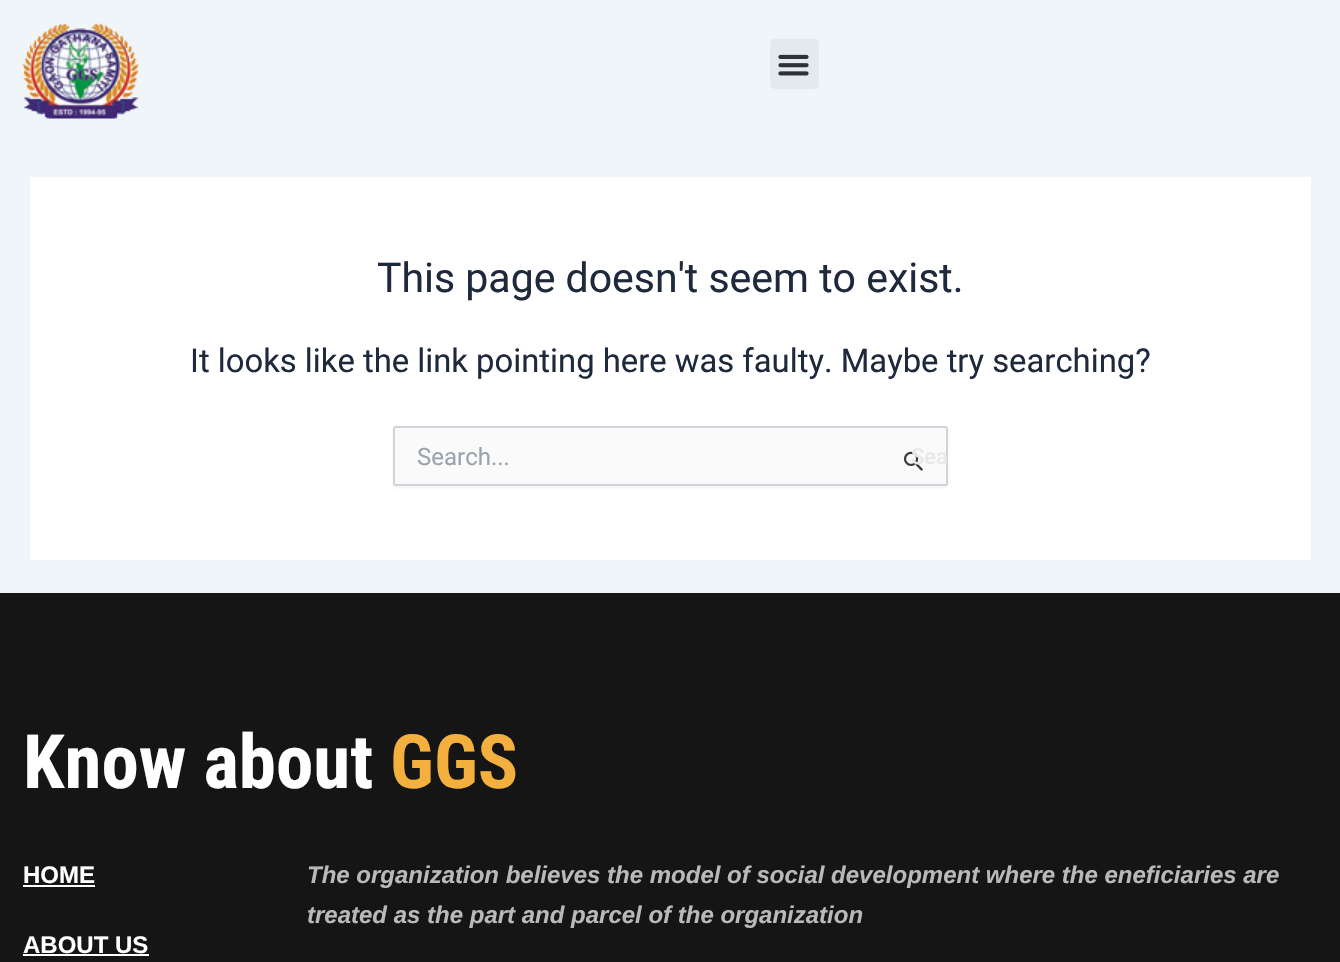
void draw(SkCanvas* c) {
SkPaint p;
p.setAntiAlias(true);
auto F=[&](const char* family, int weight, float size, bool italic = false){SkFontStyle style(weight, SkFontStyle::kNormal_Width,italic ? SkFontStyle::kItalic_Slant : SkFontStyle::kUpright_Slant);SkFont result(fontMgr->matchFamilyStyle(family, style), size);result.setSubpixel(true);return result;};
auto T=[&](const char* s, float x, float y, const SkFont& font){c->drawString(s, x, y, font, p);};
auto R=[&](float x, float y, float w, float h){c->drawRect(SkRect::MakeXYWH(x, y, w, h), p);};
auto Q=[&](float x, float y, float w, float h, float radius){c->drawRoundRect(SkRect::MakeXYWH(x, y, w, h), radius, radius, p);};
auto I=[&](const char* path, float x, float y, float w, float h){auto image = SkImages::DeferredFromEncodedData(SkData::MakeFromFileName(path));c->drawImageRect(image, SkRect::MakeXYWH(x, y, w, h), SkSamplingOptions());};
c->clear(0xfff0f5fa);
I("1.png",22,23,117,96);
p.setColor(0xffe4e9ee);
Q(770,39,49,50,5);
I("2.png",778,54,31,22);
p.setColor(0xffffffff);
R(30,177,1281,383);
auto f1 = F("Roboto",400,41);
p.setColor(0xff1e293b);
T("This page doesn't seem to exist.",377,292,f1);
auto f2 = F("Roboto",400,32.8);
T("It looks like the link pointing here was faulty. Maybe try searching?",190,372,f2);
p.setColor(0x0d000000);
p.setMaskFilter(SkMaskFilter::MakeBlur(kNormal_SkBlurStyle, 1.5));
c->drawRoundRect(SkRect::MakeXYWH(393,428,555,60),3,3,p);
p.setMaskFilter(nullptr);
p.setColor(0xfffafafa);
c->drawRoundRect(SkRect::MakeXYWH(394,427,553,58),2,2,p);
p.setStroke(true);
p.setStrokeWidth(2);
p.setColor(0xffd1d5db);
c->drawRoundRect(SkRect::MakeXYWH(394,427,553,58),2,2,p);
auto f3 = F("Roboto",400,24);
p.setStroke(false);
p.setColor(0xff9ca3af);
T("Search...",417,465,f3);
I("3.png",904,451,19,20);
auto f4 = F("Roboto",500,22);
p.setColor(0xffe9e9e9);
T("Sea",911,464,f4);
p.setColor(0xff151515);
R(0,593,1340,369);
auto f5 = F("Roboto Condensed",700,75);
p.setColor(0xffffffff);
T("Know about",23,788,f5);
p.setColor(0xfff4b03e);
T("GGS",390,788,f5);
auto f6 = F("Liberation Sans",700,24);
p.setColor(0xffffffff);
T("HOME",23,883,f6);
R(23,885,72,2);
T("ABOUT US",23,953,f6);
R(23,954,126,2);
auto f7 = F("Liberation Sans",700,24,true);
p.setColor(0xffb9b9b9);
T("The organization believes the model of social development where the eneficiaries are",307,883,f7);
T("treated as the part and parcel of the organization",307,923,f7);
}
